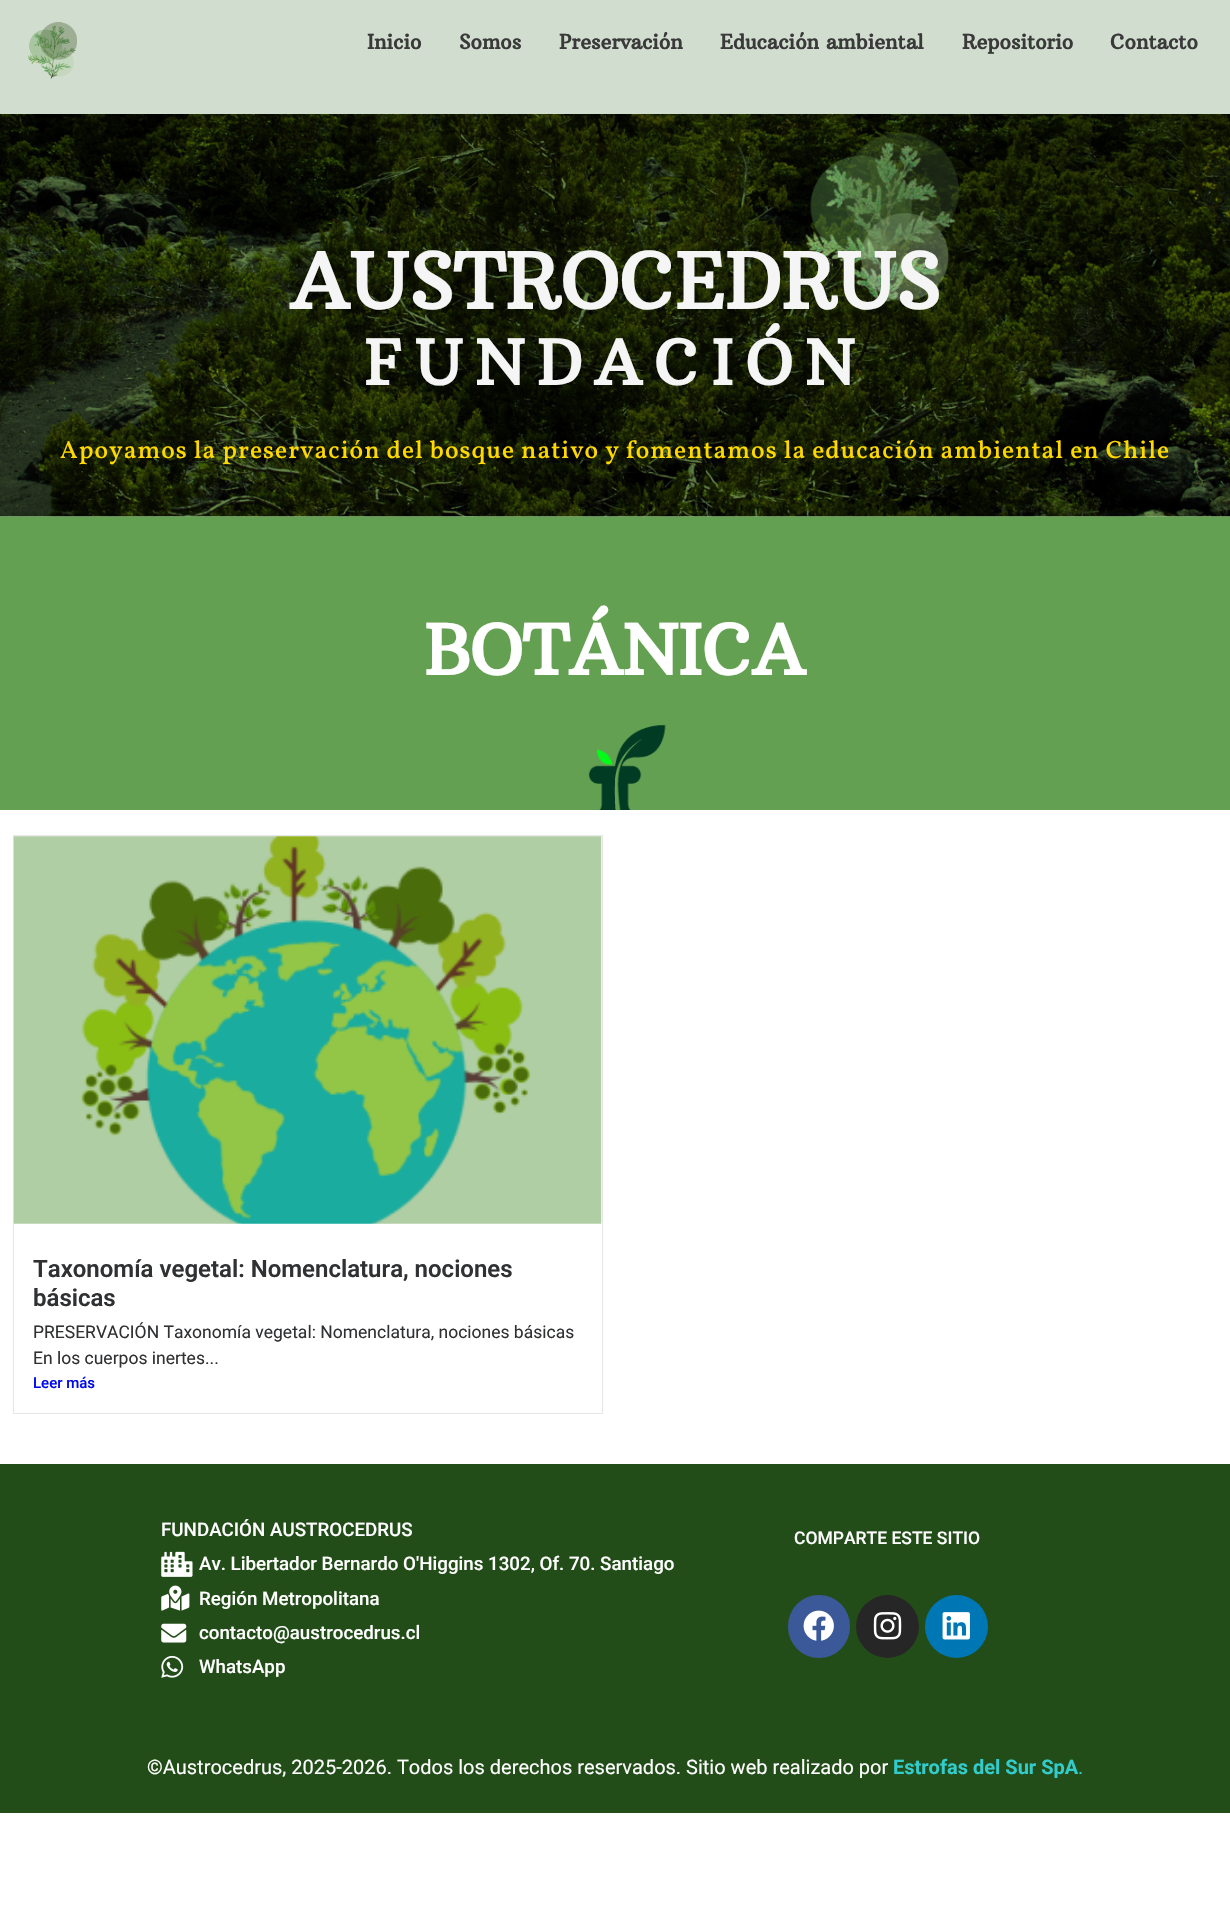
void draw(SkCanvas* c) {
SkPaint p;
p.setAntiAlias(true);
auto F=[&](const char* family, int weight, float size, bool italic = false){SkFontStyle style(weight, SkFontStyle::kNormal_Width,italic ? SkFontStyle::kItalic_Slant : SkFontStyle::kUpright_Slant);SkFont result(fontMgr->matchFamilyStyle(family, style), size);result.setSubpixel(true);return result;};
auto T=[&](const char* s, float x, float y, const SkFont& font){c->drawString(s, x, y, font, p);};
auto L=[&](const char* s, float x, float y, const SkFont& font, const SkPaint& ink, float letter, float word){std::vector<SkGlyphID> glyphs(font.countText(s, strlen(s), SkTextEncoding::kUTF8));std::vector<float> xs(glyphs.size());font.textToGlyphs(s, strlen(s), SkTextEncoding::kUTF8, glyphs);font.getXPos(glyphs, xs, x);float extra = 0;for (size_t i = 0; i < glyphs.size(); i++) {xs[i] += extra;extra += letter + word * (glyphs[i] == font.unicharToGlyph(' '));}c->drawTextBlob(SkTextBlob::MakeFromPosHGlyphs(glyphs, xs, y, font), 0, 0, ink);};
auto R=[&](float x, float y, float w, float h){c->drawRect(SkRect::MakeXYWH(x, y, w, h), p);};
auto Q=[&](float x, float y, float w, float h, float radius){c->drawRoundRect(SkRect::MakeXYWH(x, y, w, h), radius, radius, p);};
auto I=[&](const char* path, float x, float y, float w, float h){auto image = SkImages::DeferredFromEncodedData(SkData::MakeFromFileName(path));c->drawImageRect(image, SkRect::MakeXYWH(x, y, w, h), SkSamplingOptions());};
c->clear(0xffffffff);
p.setColor(0xffd1ddce);
R(0,0,1230,114);
I("1.png",27,22,50,57);
auto f1 = F("Arbutus Slab",700,20);
p.setColor(0xff3a3a3a);
T("Inicio",367,49,f1);
T("Somos",459,49,f1);
T("Preservación",559,49,f1);
T("Educación ambiental",720,49,f1);
T("Repositorio",962,49,f1);
T("Contacto",1110,49,f1);
I("3.png",0,516,1230,294);
I("2.png",0,114,1230,403);
auto f2 = F("Arbutus Slab",700,76.25);
p.setColor(0xfff5f5f5);
L("AUSTROCEDRUS",290,309,f2,p,.25,0);
auto f3 = F("Arbutus Slab",700,61.25);
L("FUNDACIÓN",364,385,f3,p,12.5,0);
auto f4 = F("Vollkorn",500,25);
p.setColor(0xffffd800);
L("Apoyamos la preservación del bosque nativo y fomentamos la educación ambiental en Chile",60,458,f4,p,1,0);
auto f5 = F("Arbutus Slab",700,68.75);
p.setColor(0xffffffff);
T("BOTÁNICA",424,675,f5);
p.setStroke(true);
p.setStrokeWidth(1);
p.setColor(0xffe6e6e6);
c->drawRect(SkRect::MakeXYWH(13.5,835.5,589,578),p);
I("4.png",13,836,589,388);
auto f6 = F("Roboto",600,24);
p.setStroke(false);
p.setColor(0xff303133);
T("Taxonomía vegetal: Nomenclatura, nociones",33,1277,f6);
T("básicas",33,1306,f6);
auto f7 = F("Roboto",400,17.5);
T("PRESERVACIÓN Taxonomía vegetal: Nomenclatura, nociones básicas",33,1338,f7);
T("En los cuerpos inertes...",33,1364,f7);
auto f8 = F("Roboto",500,15);
p.setColor(0xff000bec);
T("Leer más",33,1388,f8);
p.setColor(0xff224d18);
R(0,1464,1230,349);
auto f9 = F("Roboto",500,18.75);
p.setColor(0xffffffff);
T("FUNDACIÓN AUSTROCEDRUS",161,1536,f9);
I("5.png",161,1551,32,26);
T("Av. Libertador Bernardo O'Higgins 1302, Of. 70. Santiago",199,1570,f9);
I("6.png",161,1585,29,26);
T("Región Metropolitana",199,1605,f9);
I("7.png",161,1623,26,20);
T("contacto@austrocedrus.cl",199,1639,f9);
I("8.png",161,1655,23,23);
T("WhatsApp",199,1673,f9);
auto f10 = F("Roboto",500,17.5);
T("COMPARTE ESTE SITIO",794,1544,f10);
p.setColor(0xff3b5998);
Q(788,1595,62,63,31);
I("9.png",803,1610,31,31);
p.setColor(0xff262626);
c->drawCircle(887.5,1626.5,31.5,p);
I("10.png",873,1612,29,28);
p.setColor(0xff0077b5);
c->drawCircle(956.5,1626.5,31.5,p);
I("11.png",942,1612,28,28);
auto f11 = F("Roboto",400,20);
p.setColor(0xffffffff);
T("©Austrocedrus, 2025-2026. Todos los derechos reservados. Sitio web realizado por",147,1774,f11);
auto f12 = F("Roboto",700,20);
p.setColor(0xff33cccc);
T("Estrofas del Sur SpA",893,1774,f12);
T(".",1078,1774,f11);
}
